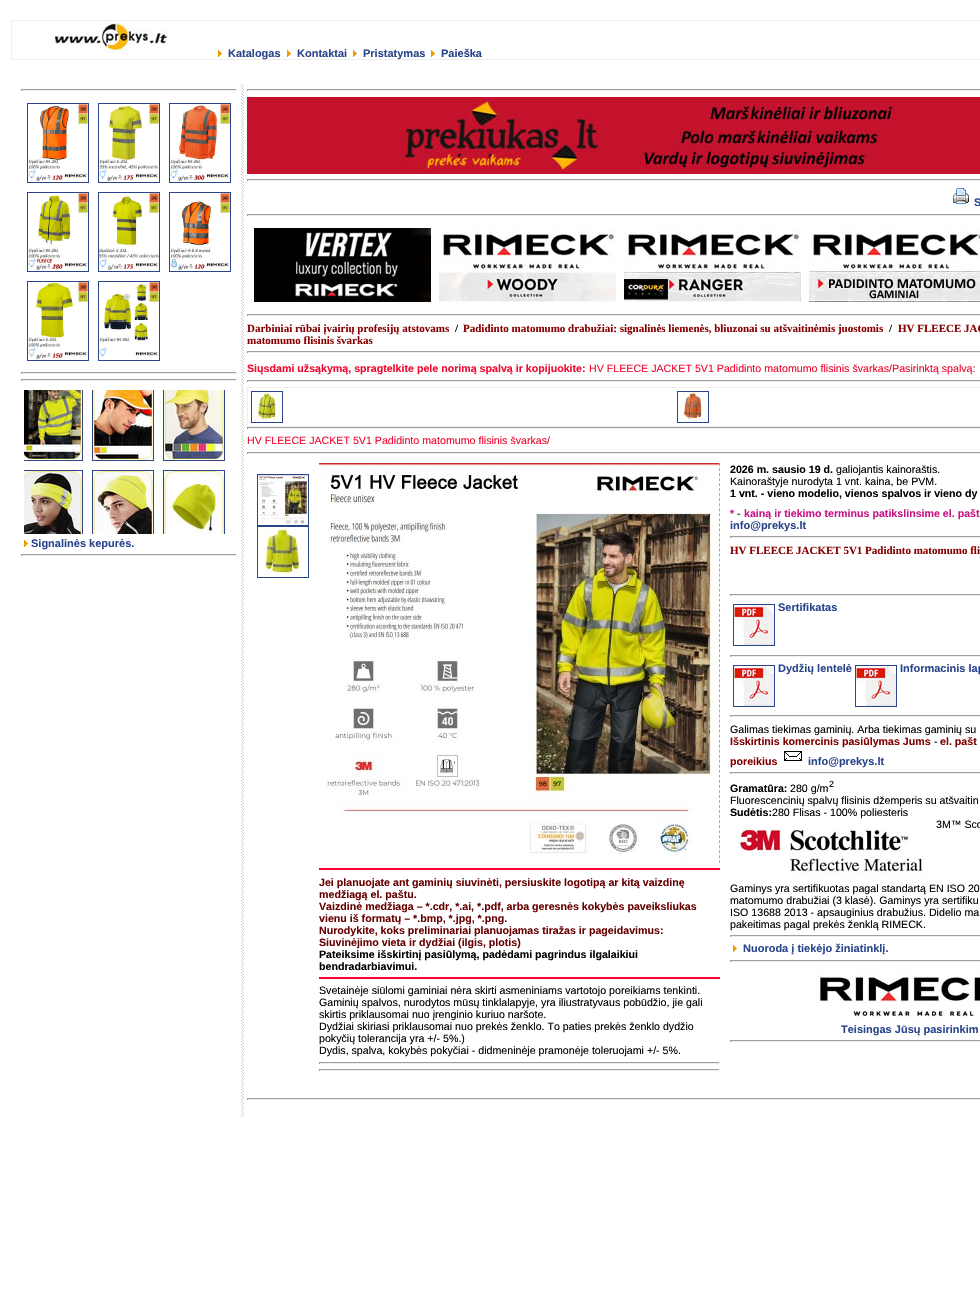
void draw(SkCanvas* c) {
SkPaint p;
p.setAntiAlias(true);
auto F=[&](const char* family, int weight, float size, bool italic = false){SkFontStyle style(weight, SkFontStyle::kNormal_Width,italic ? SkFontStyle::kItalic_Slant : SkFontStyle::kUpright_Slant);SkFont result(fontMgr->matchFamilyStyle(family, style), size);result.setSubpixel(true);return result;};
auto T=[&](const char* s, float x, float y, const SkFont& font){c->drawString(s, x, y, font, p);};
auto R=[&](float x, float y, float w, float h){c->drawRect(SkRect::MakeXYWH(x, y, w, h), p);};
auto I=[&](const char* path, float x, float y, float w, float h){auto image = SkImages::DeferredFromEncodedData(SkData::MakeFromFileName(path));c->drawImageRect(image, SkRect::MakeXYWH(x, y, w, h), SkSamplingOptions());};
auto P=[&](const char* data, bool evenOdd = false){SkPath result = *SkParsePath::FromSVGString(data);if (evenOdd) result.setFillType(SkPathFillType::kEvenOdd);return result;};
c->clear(0xffffffff);
p.setStroke(true);
p.setStrokeWidth(1);
p.setColor(0xffeeeeee);
c->drawRect(SkRect::MakeXYWH(11.5,20.5,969,39),p);
I("1.png",49,21,120,32);
I("2.png",218,50,4,7);
auto f1 = F("Liberation Sans",700,11);
p.setStroke(false);
p.setColor(0xff2a458c);
T("Katalogas",228,57,f1);
I("2.png",287,50,4,7);
T("Kontaktai",297,57,f1);
I("2.png",353,50,4,7);
T("Pristatymas",363,57,f1);
I("2.png",431,50,4,7);
T("Paieška",441,57,f1);
p.setColor(0xff9f9f9f);
R(21,89,216,1);
p.setColor(0xffeeeeee);
R(236,89,1,2);
R(21,90,216,1);
p.setColor(0xff9f9f9f);
R(21,89,1,2);
p.setStroke(true);
p.setColor(0xff2a458c);
c->drawRect(SkRect::MakeXYWH(27.5,103.5,61,79),p);
I("3.png",28,104,60,78);
c->drawRect(SkRect::MakeXYWH(98.5,103.5,61,79),p);
I("4.png",99,104,60,78);
c->drawRect(SkRect::MakeXYWH(169.5,103.5,61,79),p);
I("5.png",170,104,60,78);
c->drawRect(SkRect::MakeXYWH(27.5,192.5,61,79),p);
I("6.png",28,193,60,78);
c->drawRect(SkRect::MakeXYWH(98.5,192.5,61,79),p);
I("7.png",99,193,60,78);
c->drawRect(SkRect::MakeXYWH(169.5,192.5,61,79),p);
I("8.png",170,193,60,78);
c->drawRect(SkRect::MakeXYWH(27.5,281.5,61,79),p);
I("9.png",28,282,60,78);
c->drawRect(SkRect::MakeXYWH(98.5,281.5,61,79),p);
I("10.png",99,282,60,76);
p.setStroke(false);
p.setColor(0xff9f9f9f);
R(21,372,216,1);
p.setColor(0xffeeeeee);
R(236,372,1,2);
R(21,373,216,1);
p.setColor(0xff9f9f9f);
R(21,372,1,2);
R(21,379,216,1);
p.setColor(0xffeeeeee);
R(236,379,1,2);
R(21,380,216,1);
p.setColor(0xff9f9f9f);
R(21,379,1,2);
I("11.png",24,390,202,144);
I("2.png",24,540,4,7);
p.setColor(0xff2a458c);
T("Signalinės kepurės.",31,547,f1);
p.setColor(0xff9f9f9f);
R(21,554,216,1);
p.setColor(0xffeeeeee);
R(236,554,1,2);
R(21,555,216,1);
p.setColor(0xff9f9f9f);
R(21,554,1,2);
I("12.png",241,84,3,1033);
R(247,89,733,1);
p.setColor(0xffeeeeee);
R(247,90,733,1);
p.setColor(0xff9f9f9f);
R(247,89,1,2);
p.setColor(0xffc4122c);
R(247,97,733,77);
I("13.png",399,97,499,77);
p.setColor(0xff9f9f9f);
R(247,179,733,1);
p.setColor(0xffeeeeee);
R(247,180,733,1);
p.setColor(0xff9f9f9f);
R(247,179,1,2);
I("14.png",953,188,16,16);
p.setColor(0xff2a458c);
T("S",974,206,f1);
p.setColor(0xff9f9f9f);
R(247,214,733,1);
p.setColor(0xffeeeeee);
R(247,215,733,1);
p.setColor(0xff9f9f9f);
R(247,214,1,2);
I("15.png",254,228,177,74);
I("16.png",439,228,177,74);
I("17.png",624,228,177,74);
I("18.png",809,228,171,74);
R(247,314,733,1);
p.setColor(0xffeeeeee);
R(247,315,733,1);
p.setColor(0xff9f9f9f);
R(247,314,1,2);
auto f2 = F("Liberation Serif",700,11);
p.setColor(0xff880000);
T("Darbiniai rūbai įvairių profesijų atstovams",247,332,f2);
p.setColor(0xff000000);
T("/",455,332,f2);
p.setColor(0xff880000);
T("Padidinto matomumo drabužiai: signalinės liemenės, bliuzonai su atšvaitinėmis juostomis",463,332,f2);
p.setColor(0xff000000);
T("/",889,332,f2);
p.setColor(0xff880000);
T("HV FLEECE JAC",898,332,f2);
T("matomumo flisinis švarkas",247,344,f2);
p.setColor(0xff9f9f9f);
R(247,351,733,1);
p.setColor(0xffeeeeee);
R(247,352,733,1);
p.setColor(0xff9f9f9f);
R(247,351,1,2);
auto f3 = F("Liberation Sans",700,10.65);
p.setColor(0xfff0082e);
T("Siųsdami užsąkymą, spragtelkite pele norimą spalvą ir kopijuokite:",247,372,f3);
auto f4 = F("Liberation Sans",400,10.65);
T("HV FLEECE JACKET 5V1 Padidinto matomumo flisinis švarkas/Pasirinktą spalvą:",589,372,f4);
p.setColor(0xff9f9f9f);
R(247,380,733,1);
p.setColor(0xffeeeeee);
R(247,381,733,1);
p.setColor(0xff9f9f9f);
R(247,380,1,2);
p.setStroke(true);
p.setColor(0xffeeeeee);
c->drawRect(SkRect::MakeXYWH(247.5,387.5,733,39),p);
p.setColor(0xff2a458c);
c->drawRect(SkRect::MakeXYWH(251.5,391.5,31,31),p);
I("19.png",252,392,30,30);
c->drawRect(SkRect::MakeXYWH(677.5,391.5,31,31),p);
I("20.png",678,392,30,30);
p.setStroke(false);
p.setColor(0xff9f9f9f);
R(247,427,733,1);
p.setColor(0xffeeeeee);
R(247,428,733,1);
p.setColor(0xff9f9f9f);
R(247,427,1,2);
p.setColor(0xfff0082e);
T("HV FLEECE JACKET 5V1 Padidinto matomumo flisinis švarkas/",247,444,f4);
p.setColor(0xff9f9f9f);
R(247,452,733,1);
p.setColor(0xffeeeeee);
R(247,453,733,1);
p.setColor(0xff9f9f9f);
R(247,452,1,2);
p.setStroke(true);
p.setColor(0xff2a458c);
c->drawRect(SkRect::MakeXYWH(257.5,474.5,51,51),p);
I("21.png",258,475,50,49);
c->drawRect(SkRect::MakeXYWH(257.5,526.5,51,51),p);
I("22.png",258,527,48,48);
p.setStroke(false);
p.setColor(0xff000000);
T("2026 m. sausio 19 d.",730,473,f3);
T("galiojantis kainoraštis.",836,473,f4);
T("Kainoraštyje nurodyta 1 vnt. kaina, be PVM.",730,485,f4);
T("1 vnt. - vieno modelio, vienos spalvos ir vieno dy",730,497,f3);
p.setColor(0xffc71585);
T("*",730,517,f3);
p.setColor(0xff000000);
T("-",737,517,f4);
p.setColor(0xffc71585);
T("kainą ir tiekimo terminus patikslinsime el. pašt",744,517,f3);
p.setColor(0xffffffff);
R(769,519,2,1);
p.setColor(0xff2a458c);
T("info@prekys.lt",730,529,f1);
p.setColor(0xff9f9f9f);
R(730,536,250,1);
p.setColor(0xffeeeeee);
R(730,537,250,1);
p.setColor(0xff9f9f9f);
R(730,536,1,2);
p.setColor(0xff880000);
T("HV FLEECE JACKET 5V1 Padidinto matomumo fli",730,554,f2);
p.setColor(0xff9f9f9f);
R(730,594,250,1);
p.setColor(0xffeeeeee);
R(730,595,250,1);
p.setColor(0xff9f9f9f);
R(730,594,1,2);
p.setStroke(true);
p.setColor(0xff2a458c);
c->drawRect(SkRect::MakeXYWH(733.5,604.5,41,41),p);
I("23.png",734,605,40,40);
p.setStroke(false);
T("Sertifikatas",778,611,f1);
p.setColor(0xff9f9f9f);
R(730,655,250,1);
p.setColor(0xffeeeeee);
R(730,656,250,1);
p.setColor(0xff9f9f9f);
R(730,655,1,2);
p.setStroke(true);
p.setColor(0xff2a458c);
c->drawRect(SkRect::MakeXYWH(733.5,665.5,41,41),p);
I("23.png",734,666,40,40);
p.setStroke(false);
T("Dydžių lentelė",778,672,f1);
p.setStroke(true);
c->drawRect(SkRect::MakeXYWH(855.5,665.5,41,41),p);
I("23.png",856,666,40,40);
p.setStroke(false);
T("Informacinis lap",900,672,f1);
p.setColor(0xff9f9f9f);
R(730,715,250,1);
p.setColor(0xffeeeeee);
R(730,716,250,1);
p.setColor(0xff9f9f9f);
R(730,715,1,2);
p.setColor(0xff000000);
T("Galimas tiekimas gaminių. Arba tiekimas gaminių su",730,733,f4);
p.setColor(0xff800000);
T("Išskirtinis komercinis pasiūlymas Jums",730,745,f3);
p.setColor(0xff000000);
T("-",934,745,f4);
p.setColor(0xff800000);
T("el. pašt",940,745,f3);
I("24.png",784,751,18,10);
T("poreikius",730,765,f3);
p.setColor(0xff2a458c);
T("info@prekys.lt",808,765,f1);
p.setColor(0xff9f9f9f);
R(730,772,250,1);
p.setColor(0xffeeeeee);
R(730,773,250,1);
p.setColor(0xff9f9f9f);
R(730,772,1,2);
p.setColor(0xff000000);
T("Gramatūra:",730,792,f3);
T("280 g/m",790,792,f4);
auto f5 = F("Liberation Sans",400,9);
T("2",829,787,f5);
T("Fluorescencinių spalvų flisinis džemperis su atšvaitin",730,804,f4);
T("Sudėtis:",730,816,f3);
T("280 Flisas - 100% poliesteris",772,816,f4);
T("3M™ Sco",936,828,f4);
I("25.png",733,829,192,48);
T("Gaminys yra sertifikuotas pagal standartą EN ISO 20",730,892,f4);
T("matomumo drabužiai (3 klasė). Gaminys yra sertifiku",730,904,f4);
T("ISO 13688 2013 - apsauginius drabužius. Didelio ma",730,916,f4);
T("pakeitimas pagal prekės ženklą RIMECK.",730,928,f4);
p.setColor(0xff9f9f9f);
R(730,935,250,1);
p.setColor(0xffeeeeee);
R(730,936,250,1);
p.setColor(0xff9f9f9f);
R(730,935,1,2);
I("2.png",733,945,4,7);
p.setColor(0xff2a458c);
T("Nuoroda į tiekėjo žiniatinklį.",743,952,f1);
p.setColor(0xff9f9f9f);
R(730,960,250,1);
p.setColor(0xffeeeeee);
R(730,961,250,1);
p.setColor(0xff9f9f9f);
R(730,960,1,2);
I("26.png",815,971,165,47);
p.setColor(0xff2a458c);
T("Teisingas Jūsų pasirinkim",841,1033,f1);
p.setColor(0xff9f9f9f);
R(730,1040,250,1);
p.setColor(0xffeeeeee);
R(730,1041,250,1);
p.setColor(0xff9f9f9f);
R(730,1040,1,2);
p.setStroke(true);
p.setColor(0xffaaaaaa);
p.setPathEffect(SkDashPathEffect::Make({{3,2.03f}}, 0));
c->drawPath(P("M719.5 463v400"),p);
p.setPathEffect(nullptr);
I("27.png",319,463,400,400);
p.setStroke(false);
p.setColor(0xffff0033);
R(319,868,401,2);
p.setColor(0xff660000);
T("Jei planuojate ant gaminių siuvinėti, persiuskite logotipą ar kitą vaizdinę",319,886,f3);
T("medžiagą el. paštu.",319,898,f3);
T("Vaizdinė medžiaga – *.cdr, *.ai, *.pdf, arba geresnės kokybės paveiksliukas",319,910,f3);
T("vienu iš formatų – *.bmp, *.jpg, *.png.",319,922,f3);
T("Nurodykite, koks preliminariai planuojamas tiražas ir pageidavimus:",319,934,f3);
T("Siuvinėjimo vieta ir dydžiai (ilgis, plotis)",319,946,f3);
p.setColor(0xff000000);
T("Pateiksime išskirtinį pasiūlymą, padėdami pagrindus ilgalaikiui",319,958,f3);
T("bendradarbiavimui.",319,970,f3);
p.setColor(0xffff0033);
R(319,977,401,2);
p.setColor(0xff000000);
T("Svetainėje siūlomi gaminiai nėra skirti asmeniniams vartotojo poreikiams tenkinti.",319,994,f4);
T("Gaminių spalvos, nurodytos mūsų tinklalapyje, yra iliustratyvaus pobūdžio, jie gali",319,1006,f4);
T("skirtis priklausomai nuo įrenginio kuriuo naršote.",319,1018,f4);
T("Dydžiai skiriasi priklausomai nuo prekės ženklo. To paties prekės ženklo dydžio",319,1030,f4);
T("pokyčių tolerancija yra +/- 5%.)",319,1042,f4);
T("Dydis, spalva, kokybės pokyčiai - didmeninėje pramonėje toleruojami +/- 5%.",319,1054,f4);
p.setColor(0xff9f9f9f);
R(319,1062,401,1);
p.setColor(0xffeeeeee);
R(719,1062,1,2);
R(319,1063,401,1);
p.setColor(0xff9f9f9f);
R(319,1062,1,2);
R(319,1069,401,1);
p.setColor(0xffeeeeee);
R(719,1069,1,2);
R(319,1070,401,1);
p.setColor(0xff9f9f9f);
R(319,1069,1,2);
R(247,1098,733,1);
p.setColor(0xffeeeeee);
R(247,1099,733,1);
p.setColor(0xff9f9f9f);
R(247,1098,1,2);
}
